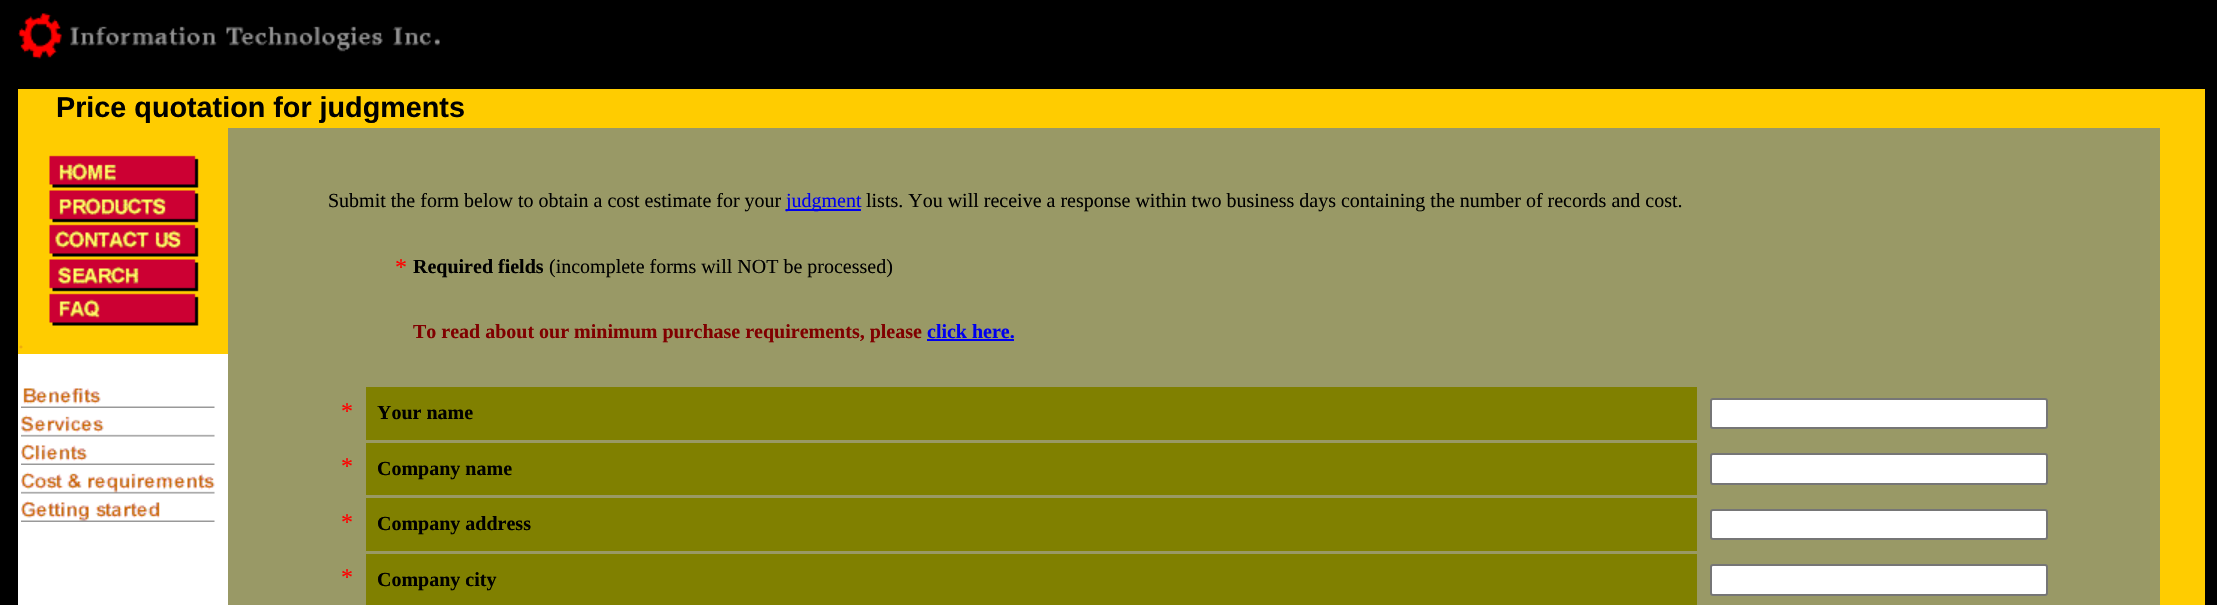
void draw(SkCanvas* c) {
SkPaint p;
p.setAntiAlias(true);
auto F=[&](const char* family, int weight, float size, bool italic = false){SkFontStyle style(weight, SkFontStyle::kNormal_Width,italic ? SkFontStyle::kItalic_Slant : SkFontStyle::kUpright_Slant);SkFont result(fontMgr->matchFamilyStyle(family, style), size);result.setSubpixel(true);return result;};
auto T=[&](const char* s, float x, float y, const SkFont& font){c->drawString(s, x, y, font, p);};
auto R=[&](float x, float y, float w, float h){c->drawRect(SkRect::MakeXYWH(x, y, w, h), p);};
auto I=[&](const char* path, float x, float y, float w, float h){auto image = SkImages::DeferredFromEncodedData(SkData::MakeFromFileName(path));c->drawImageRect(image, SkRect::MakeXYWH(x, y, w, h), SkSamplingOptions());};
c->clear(0xff000000);
I("1.png",18,13,422,46);
p.setColor(0xffffcc00);
R(18,89,2187,39);
auto f1 = F("Liberation Sans",700,28.75);
p.setColor(0xff000000);
T("Price quotation for judgments",56,117,f1);
p.setColor(0xffffffff);
R(18,354,210,251);
p.setColor(0xffffcc00);
R(18,128,210,226);
I("2.png",49,155,150,33);
I("3.png",49,190,150,33);
I("4.png",49,224,150,33);
I("5.png",49,259,150,33);
I("6.png",49,293,150,33);
auto f2 = F("Liberation Serif",400,24);
p.setColor(0xfff0ac0c);
T(".",18,348,f2);
I("7.png",21,388,194,20);
I("8.png",21,415,194,22);
I("9.png",21,443,194,22);
I("10.png",21,472,194,22);
I("11.png",21,500,194,22);
p.setColor(0xff999966);
R(228,128,1932,477);
auto f3 = F("Liberation Serif",400,20);
p.setColor(0xff000000);
T("Submit the form below to obtain a cost estimate for your",328,207,f3);
p.setColor(0xff0000ee);
R(786,209,75,2);
T("judgment",786,207,f3);
p.setColor(0xff000000);
T("lists. You will receive a response within two business days containing the number of records and cost.",866,207,f3);
p.setColor(0xffff0000);
T("*",395,275,f2);
auto f4 = F("Liberation Serif",700,20);
p.setColor(0xff000000);
T("Required fields",413,273,f4);
T("(incomplete forms will NOT be processed)",549,273,f3);
p.setColor(0xff800000);
T("To read about our minimum purchase requirements, please",413,338,f4);
p.setColor(0xff0000ee);
T("click here.",927,338,f4);
R(927,339,87,2);
p.setColor(0xffff0000);
T("*",341,419,f2);
p.setColor(0xff808000);
R(366,387,1331,53);
p.setColor(0xff000000);
T("Your name",377,419,f4);
p.setColor(0xffffffff);
c->drawRoundRect(SkRect::MakeXYWH(1711,399,336,29),2,2,p);
p.setStroke(true);
p.setStrokeWidth(2);
p.setColor(0xff767676);
c->drawRoundRect(SkRect::MakeXYWH(1711,399,336,29),2,2,p);
p.setStroke(false);
p.setColor(0xffff0000);
T("*",341,474,f2);
p.setColor(0xff808000);
R(366,443,1331,52);
p.setColor(0xff000000);
T("Company name",377,475,f4);
p.setColor(0xffffffff);
c->drawRoundRect(SkRect::MakeXYWH(1711,454,336,30),2,2,p);
p.setStroke(true);
p.setColor(0xff767676);
c->drawRoundRect(SkRect::MakeXYWH(1711,454,336,30),2,2,p);
p.setStroke(false);
p.setColor(0xffff0000);
T("*",341,530,f2);
p.setColor(0xff808000);
R(366,498,1331,53);
p.setColor(0xff000000);
T("Company address",377,530,f4);
p.setColor(0xffffffff);
c->drawRoundRect(SkRect::MakeXYWH(1711,510,336,29),2,2,p);
p.setStroke(true);
p.setColor(0xff767676);
c->drawRoundRect(SkRect::MakeXYWH(1711,510,336,29),2,2,p);
p.setStroke(false);
p.setColor(0xffff0000);
T("*",341,585,f2);
p.setColor(0xff808000);
R(366,554,1331,51);
p.setColor(0xff000000);
T("Company city",377,586,f4);
p.setColor(0xffffffff);
c->drawRoundRect(SkRect::MakeXYWH(1711,565,336,30),2,2,p);
p.setStroke(true);
p.setColor(0xff767676);
c->drawRoundRect(SkRect::MakeXYWH(1711,565,336,30),2,2,p);
p.setStroke(false);
p.setColor(0xffffcc00);
R(2160,128,45,477);
}
